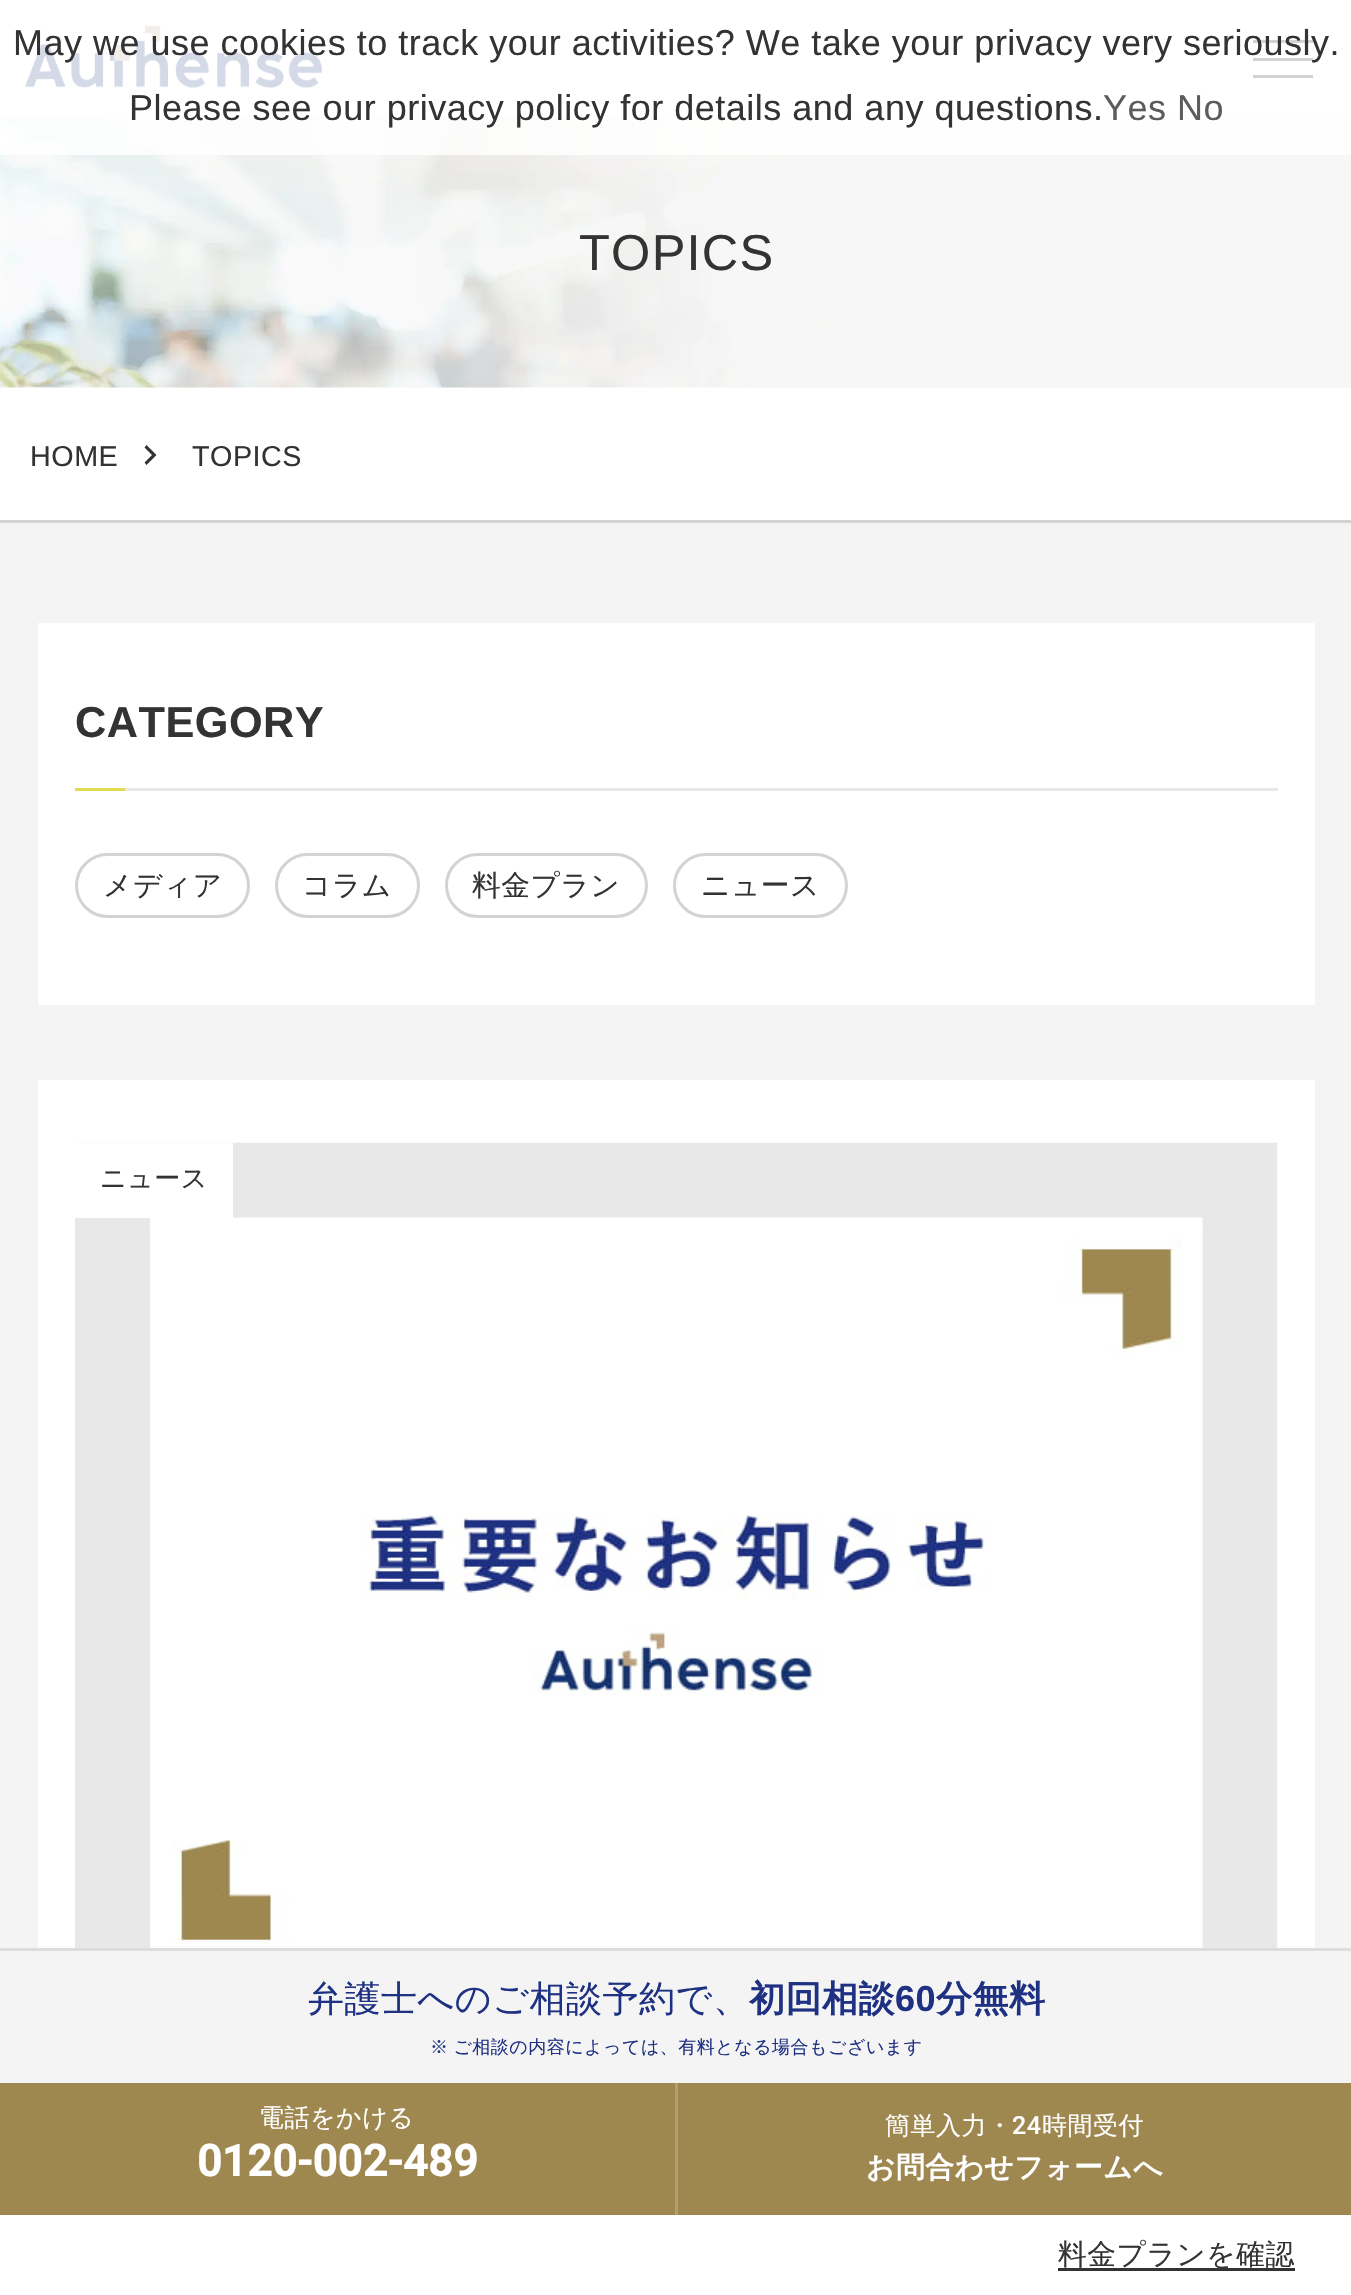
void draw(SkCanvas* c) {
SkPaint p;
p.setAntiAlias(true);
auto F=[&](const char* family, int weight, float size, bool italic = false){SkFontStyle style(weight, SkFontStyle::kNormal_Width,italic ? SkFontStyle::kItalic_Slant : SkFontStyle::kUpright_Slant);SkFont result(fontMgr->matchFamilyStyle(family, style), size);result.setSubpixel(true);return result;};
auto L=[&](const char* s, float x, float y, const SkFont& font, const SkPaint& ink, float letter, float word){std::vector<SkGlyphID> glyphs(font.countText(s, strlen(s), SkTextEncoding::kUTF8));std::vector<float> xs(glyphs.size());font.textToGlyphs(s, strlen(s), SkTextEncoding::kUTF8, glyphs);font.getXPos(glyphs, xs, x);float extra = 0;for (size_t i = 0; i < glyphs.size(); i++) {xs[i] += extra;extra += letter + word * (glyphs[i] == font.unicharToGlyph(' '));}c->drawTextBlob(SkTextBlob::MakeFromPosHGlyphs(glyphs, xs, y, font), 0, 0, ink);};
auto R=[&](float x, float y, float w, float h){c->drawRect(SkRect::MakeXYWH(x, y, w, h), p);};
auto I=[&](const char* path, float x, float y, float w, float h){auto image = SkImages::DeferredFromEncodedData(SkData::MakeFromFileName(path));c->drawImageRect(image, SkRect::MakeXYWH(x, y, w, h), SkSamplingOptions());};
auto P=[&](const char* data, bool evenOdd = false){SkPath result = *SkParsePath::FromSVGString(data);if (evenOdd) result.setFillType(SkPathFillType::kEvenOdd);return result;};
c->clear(0xffffffff);
I("1.png",25,25,297,63);
p.setColor(0xff222222);
R(1253,58,60,3);
R(1253,40,60,3);
R(1253,75,60,3);
I("2.png",0,117,1351,271);
p.setColor(0xccffffff);
R(0,25,1351,130);
auto f1 = F("Liberation Sans",400,36);
p.setColor(0xff333333);
L("May we use cookies to track your activities? We take your privacy very seriously.",13,55,f1,p,.5,0);
L("Please see our privacy policy for details and any questions.",129,120,f1,p,.5,0);
p.setColor(0xff5c5c5c);
L("Yes No",1103,120,f1,p,.5,0);
auto f2 = F("Liberation Sans",400,50.5);
p.setColor(0xff333333);
L("TOPICS",579,270,f2,p,1.25,0);
p.setColor(0xffd3d3d3);
R(0,520,1351,3);
auto f3 = F("Liberation Sans",400,28.75);
p.setColor(0xff333333);
L("HOME",30,466,f3,p,.5,0);
c->drawPath(P("M144.5 462.5l7.5-7.5l-7.5-7.5l2-2.5l10 10l-10 10z"),p);
L("TOPICS",192,466,f3,p,.5,0);
p.setColor(0xfff4f4f4);
R(0,523,1351,1425);
p.setColor(0xffffffff);
R(38,623,1277,382);
p.setColor(0xffe8e8e8);
R(125,788,1153,3);
auto f4 = F("Liberation Sans",700,43.25);
p.setColor(0xff333333);
L("CATEGORY",75,737,f4,p,.5,0);
p.setColor(0xffe4dc50);
R(75,788,50,3);
p.setStroke(true);
p.setStrokeWidth(3);
p.setColor(0xffd3d3d3);
c->drawRoundRect(SkRect::MakeXYWH(76.5,854.5,172,62),31,31,p);
auto f5 = F("WenQuanYi Zen Hei",500,28.75);
p.setStroke(false);
p.setColor(0xff333333);
L("メディア",103,895,f5,p,.5,0);
p.setStroke(true);
p.setColor(0xffd3d3d3);
c->drawRoundRect(SkRect::MakeXYWH(276.5,854.5,142,62),31,31,p);
p.setStroke(false);
p.setColor(0xff333333);
L("コラム",302,895,f5,p,.5,0);
p.setStroke(true);
p.setColor(0xffd3d3d3);
c->drawRoundRect(SkRect::MakeXYWH(446.5,854.5,200,62),31,31,p);
p.setStroke(false);
p.setColor(0xff333333);
L("料金プラン",472,895,f5,p,.5,0);
p.setStroke(true);
p.setColor(0xffd3d3d3);
c->drawRoundRect(SkRect::MakeXYWH(674.5,854.5,172,62),31,31,p);
p.setStroke(false);
p.setColor(0xff333333);
L("ニュース",701,895,f5,p,.5,0);
p.setColor(0xffffffff);
R(38,1080,1277,868);
I("3.png",75,1142,1203,806);
R(75,1143,158,75);
auto f6 = F("WenQuanYi Zen Hei",500,26);
p.setColor(0xff333333);
L("ニュース",100,1187,f6,p,.5,0);
p.setColor(0xff9e8850);
R(0,2083,1351,132);
p.setColor(0xfff4f4f4);
R(0,1951,1351,132);
p.setColor(0xffdddddd);
R(0,1948,1351,3);
auto f7 = F("WenQuanYi Zen Hei",500,36);
p.setColor(0xff1f3183);
L("弁護士へのご相談予約で、",308,2011,f7,p,.5,0);
auto f8 = F("WenQuanYi Zen Hei",700,36);
L("初回相談",749,2011,f8,p,.5,0);
auto f9 = F("Liberation Sans",700,36);
L("60",895,2011,f9,p,.5,0);
L("分無料",936,2011,f8,p,.5,0);
auto f10 = F("WenQuanYi Zen Hei",500,18);
L("※ ご相談の内容によっては、有料となる場合もございます",430,2053,f10,p,.5,-1);
p.setColor(0xffb1a073);
R(675,2083,3,132);
auto f11 = F("WenQuanYi Zen Hei",500,25);
p.setColor(0xffffffff);
L("電話をかける",259,2126,f11,p,.5,0);
auto f12 = F("Roboto",700,43.25);
L("0120-002-489",197,2176,f12,p,.5,0);
L("簡単入力・",885,2134,f11,p,.5,0);
auto f13 = F("Roboto",500,25);
L("24",1012,2134,f13,p,.5,0);
L("時間受付",1042,2134,f11,p,.5,0);
auto f14 = F("WenQuanYi Zen Hei",700,28.75);
L("お問合わせフォームへ",866,2177,f14,p,.5,0);
p.setColor(0xff333333);
R(1058,2268,237,3);
L("料金プランを確認",1058,2264,f5,p,.5,0);
}
